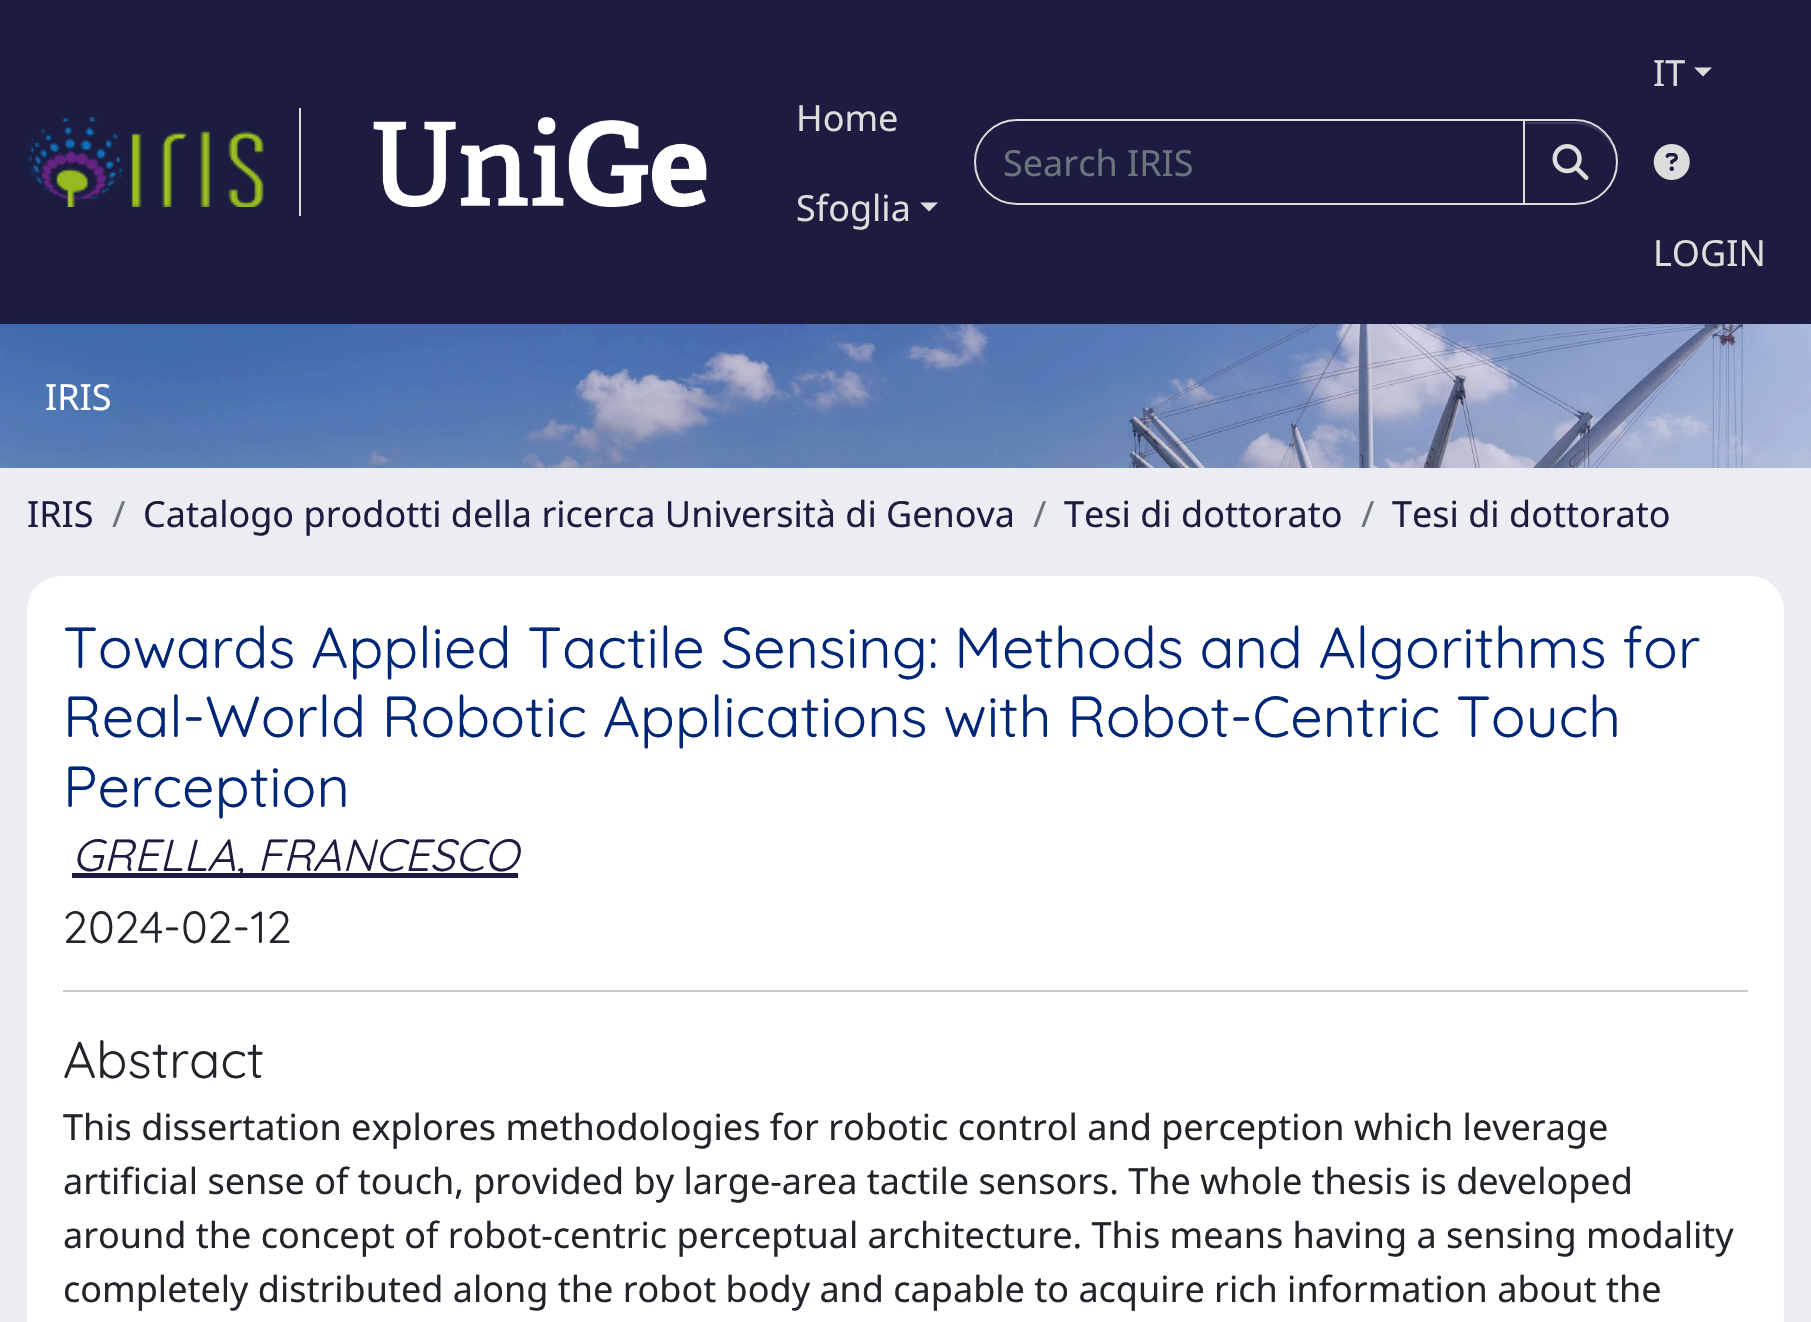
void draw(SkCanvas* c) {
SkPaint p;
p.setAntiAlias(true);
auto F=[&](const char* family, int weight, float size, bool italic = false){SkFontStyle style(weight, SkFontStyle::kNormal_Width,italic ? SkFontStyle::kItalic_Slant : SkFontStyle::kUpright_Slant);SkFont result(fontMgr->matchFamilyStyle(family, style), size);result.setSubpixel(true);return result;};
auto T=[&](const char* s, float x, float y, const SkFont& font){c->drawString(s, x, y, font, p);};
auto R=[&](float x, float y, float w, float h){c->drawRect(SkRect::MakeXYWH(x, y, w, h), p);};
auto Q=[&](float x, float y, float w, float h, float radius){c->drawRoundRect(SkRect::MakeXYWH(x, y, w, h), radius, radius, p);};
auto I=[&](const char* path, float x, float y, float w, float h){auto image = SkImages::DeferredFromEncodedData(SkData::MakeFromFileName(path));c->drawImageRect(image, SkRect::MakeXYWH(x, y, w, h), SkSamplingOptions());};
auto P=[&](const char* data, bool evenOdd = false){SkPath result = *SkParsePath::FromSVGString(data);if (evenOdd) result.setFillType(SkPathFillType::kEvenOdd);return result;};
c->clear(0xffecedf2);
p.setColor(0xff1b1c40);
R(0,0,1811,324);
p.setColor(0xffdddddd);
R(299,108,2,108);
I("1.png",27,117,237,90);
I("2.png",373,117,334,90);
auto f1 = F("Noto Sans",400,36);
T("Home",796,131,f1);
T("Sfoglia",796,221,f1);
c->drawPath(P("M920 202.5h18l-9 9z"),p);
p.setStroke(true);
p.setStrokeWidth(2);
c->drawPath(P("M1017 120h508v84h-508c-23 0-42-19-42-42c0-23 19-42 42-42z"),p);
p.setStroke(false);
p.setColor(0xff6c757d);
T("Search IRIS",1003,176,f1);
p.setColor(0x12000000);
p.setMaskFilter(SkMaskFilter::MakeBlur(kNormal_SkBlurStyle, 1));
c->drawRoundRect(SkRect::MakeXYWH(1523,122,95,85),42.5,42.5,p);
p.setMaskFilter(nullptr);
p.setColor(0xff1b1c40);
c->drawPath(P("M1523 119h52c23.5 0 43 19.5 43 43c0 23.5-19.5 43-43 43h-52z"),p);
p.setColor(0xff3d3e5d);
c->drawPath(P("M1526 124h49c22 0 41 18 41 39v-1c0-22-18-40-40-40h-50z"),p);
p.setStroke(true);
p.setColor(0xffdddddd);
c->drawPath(P("M1524 120h51c23 0 42 19 42 42c0 23-19 42-42 42h-51z"),p);
I("3.png",1552,144,37,36);
p.setStroke(false);
T("IT",1653,86,f1);
c->drawPath(P("M1694 67.5h18l-9 9z"),p);
I("4.png",1653,144,37,36);
T("LOGIN",1653,266,f1);
I("5.png",0,324,1811,144);
p.setColor(0xffffffff);
T("IRIS",45,410,f1);
p.setColor(0xff1b1c40);
T("IRIS",27,527,f1);
p.setColor(0xff6c757d);
T("/",112,527,f1);
p.setColor(0xff1b1c40);
T("Catalogo prodotti della ricerca Università di Genova",143,527,f1);
p.setColor(0xff6c757d);
T("/",1033,527,f1);
p.setColor(0xff1b1c40);
T("Tesi di dottorato",1064,527,f1);
p.setColor(0xff6c757d);
T("/",1361,527,f1);
p.setColor(0xff1b1c40);
T("Tesi di dottorato",1392,527,f1);
p.setColor(0xffffffff);
Q(27,576,1757,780,34);
auto f2 = F("Quicksand",300,57.7);
p.setColor(0xff002677);
T("Towards Applied Tactile Sensing: Methods and Algorithms for",63,668,f2);
T("Real-World Robotic Applications with Robot-Centric Touch",63,737,f2);
T("Perception",63,807,f2);
p.setColor(0xff1b1c40);
R(72,873,446,5);
auto f3 = F("Quicksand",300,45,true);
T("GRELLA, FRANCESCO",72,871,f3);
auto f4 = F("Quicksand",300,45);
p.setColor(0xff212529);
T("2024-02-12",63,943,f4);
p.setColor(0xffc8c9ca);
R(63,990,1685,2);
auto f5 = F("Quicksand",300,51.5);
p.setColor(0xff212529);
T("Abstract",63,1078,f5);
T("This dissertation explores methodologies for robotic control and perception which leverage",63,1140,f1);
T("artificial sense of touch, provided by large-area tactile sensors. The whole thesis is developed",63,1194,f1);
T("around the concept of robot-centric perceptual architecture. This means having a sensing modality",63,1248,f1);
T("completely distributed along the robot body and capable to acquire rich information about the",63,1302,f1);
}
